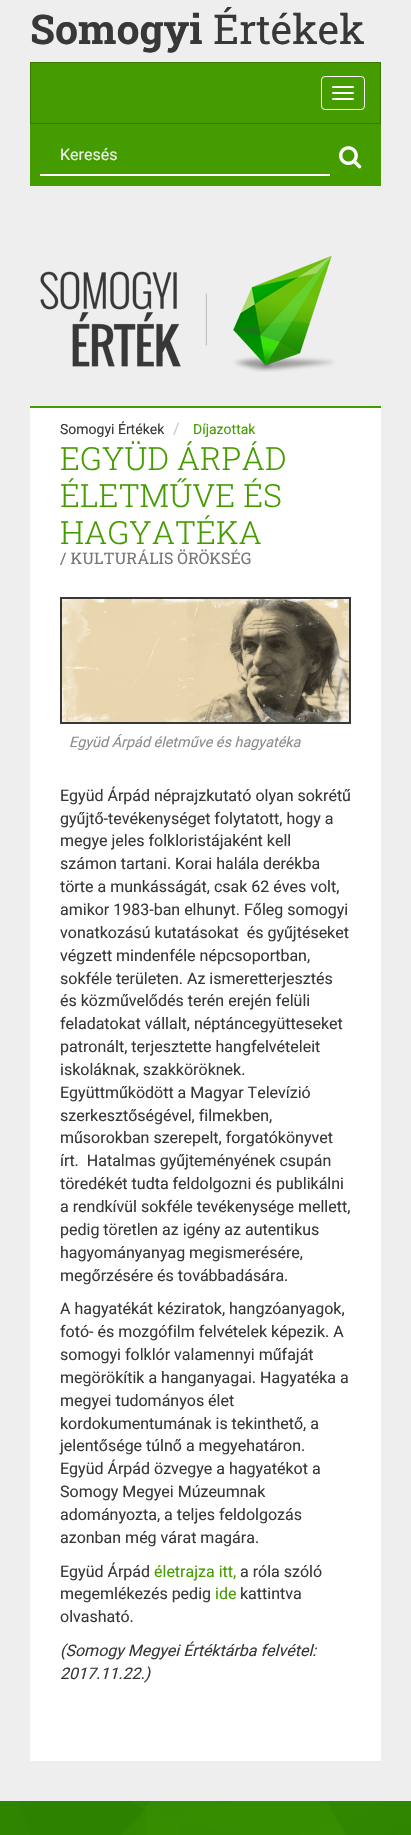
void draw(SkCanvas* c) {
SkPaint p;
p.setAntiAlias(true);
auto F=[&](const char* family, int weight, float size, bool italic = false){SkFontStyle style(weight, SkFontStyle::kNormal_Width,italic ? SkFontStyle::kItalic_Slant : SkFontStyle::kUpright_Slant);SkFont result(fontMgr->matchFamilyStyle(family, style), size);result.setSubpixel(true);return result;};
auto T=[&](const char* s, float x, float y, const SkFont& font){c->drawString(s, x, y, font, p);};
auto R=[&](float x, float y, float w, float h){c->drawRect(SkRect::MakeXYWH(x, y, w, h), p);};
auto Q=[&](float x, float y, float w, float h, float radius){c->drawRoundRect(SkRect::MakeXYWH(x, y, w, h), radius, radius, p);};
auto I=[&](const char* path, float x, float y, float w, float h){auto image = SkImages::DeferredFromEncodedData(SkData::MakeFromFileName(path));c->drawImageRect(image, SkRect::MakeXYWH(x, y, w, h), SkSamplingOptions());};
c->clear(0xffeeeeee);
auto f1 = F("Roboto Slab",700,41);
p.setColor(0xff383838);
T("Somogyi",30,44,f1);
auto f2 = F("Roboto Slab",400,41);
T("Értékek",213,44,f2);
p.setColor(0xff459c00);
c->drawRect(SkRect::MakeXYWH(30.5,62.5,350,61),p);
p.setStroke(true);
p.setStrokeWidth(1);
p.setColor(0xff367b00);
c->drawRect(SkRect::MakeXYWH(30.5,62.5,350,61),p);
p.setColor(0xffffffff);
c->drawRoundRect(SkRect::MakeXYWH(321.5,76.5,43,33),3.5,3.5,p);
p.setStroke(false);
Q(332,86,22,2,1);
Q(332,92,22,2,1);
Q(332,98,22,2,1);
p.setColor(0xff459c00);
R(30,124,351,62);
p.setColor(0xffffffff);
R(40,174,290,2);
auto f3 = F("Roboto",400,16);
p.setColor(0xffeeeeee);
T("Keresés",60,160,f3);
I("1.png",339,146,23,23);
I("2.png",40,256,295,116);
p.setColor(0xffffffff);
R(30,408,351,1353);
p.setColor(0xff459c00);
R(30,406,351,2);
auto f4 = F("Roboto",400,14);
p.setColor(0xff383838);
T("Somogyi Értékek",60,434,f4);
p.setColor(0xffcccccc);
T("/",173,434,f3);
p.setColor(0xff459c00);
T("Díjazottak",193,434,f4);
auto f5 = F("Roboto Slab",300,32);
T("EGYÜD ÁRPÁD",60,470,f5);
T("ÉLETMŰVE ÉS",60,507,f5);
T("HAGYATÉKA",60,544,f5);
auto f6 = F("Roboto Slab",400,16);
p.setColor(0xff777777);
T("/ KULTURÁLIS ÖRÖKSÉG",60,564,f6);
p.setStroke(true);
p.setStrokeWidth(2);
p.setColor(0xff383838);
c->drawRect(SkRect::MakeXYWH(61,598,289,125),p);
I("3.png",62,599,287,123);
auto f7 = F("Roboto",400,14.4,true);
p.setStroke(false);
p.setColor(0xff8c8c8c);
T("Együd Árpád életműve és hagyatéka",69,747,f7);
p.setColor(0xff383838);
T("Együd Árpád néprajzkutató olyan sokrétű",60,801,f3);
T("gyűjtő-tevékenységet folytatott, hogy a",60,824,f3);
T("megye jeles folkloristájaként kell",60,846,f3);
T("számon tartani. Korai halála derékba",60,869,f3);
T("törte a munkásságát, csak 62 éves volt,",60,892,f3);
T("amikor 1983-ban elhunyt. Főleg somogyi",60,915,f3);
T("vonatkozású kutatásokat  és gyűjtéseket",60,938,f3);
T("végzett mindenféle népcsoportban,",60,961,f3);
T("sokféle területen. Az ismeretterjesztés",60,984,f3);
T("és közművelődés terén erején felüli",60,1006,f3);
T("feladatokat vállalt, néptáncegyütteseket",60,1029,f3);
T("patronált, terjesztette hangfelvételeit",60,1052,f3);
T("iskoláknak, szakköröknek.",60,1075,f3);
T("Együttműködött a Magyar Televízió",60,1098,f3);
T("szerkesztőségével, filmekben,",60,1121,f3);
T("műsorokban szerepelt, forgatókönyvet",60,1143,f3);
T("írt.  Hatalmas gyűjteményének csupán",60,1166,f3);
T("töredékét tudta feldolgozni és publikálni",60,1189,f3);
T("a rendkívül sokféle tevékenysége mellett,",60,1212,f3);
T("pedig töretlen az igény az autentikus",60,1235,f3);
T("hagyományanyag megismerésére,",60,1258,f3);
T("megőrzésére és továbbadására.",60,1281,f3);
T("A hagyatékát kéziratok, hangzóanyagok,",60,1314,f3);
T("fotó- és mozgófilm felvételek képezik. A",60,1337,f3);
T("somogyi folklór valamennyi műfaját",60,1360,f3);
T("megörökítik a hanganyagai. Hagyatéka a",60,1383,f3);
T("megyei tudományos élet",60,1406,f3);
T("kordokumentumának is tekinthető, a",60,1429,f3);
T("jelentősége túlnő a megyehatáron.",60,1451,f3);
T("Együd Árpád özvegye a hagyatékot a",60,1474,f3);
T("Somogy Megyei Múzeumnak",60,1497,f3);
T("adományozta, a teljes feldolgozás",60,1520,f3);
T("azonban még várat magára.",60,1543,f3);
T("Együd Árpád",60,1577,f3);
p.setColor(0xff459c00);
T("életrajza itt,",154,1577,f3);
p.setColor(0xff383838);
T("a róla szóló",240,1577,f3);
T("megemlékezés pedig",60,1599,f3);
p.setColor(0xff459c00);
T("ide",215,1599,f3);
p.setColor(0xff383838);
T("kattintva",240,1599,f3);
T("olvasható.",60,1622,f3);
auto f8 = F("Roboto",400,16,true);
T("(Somogy Megyei Értéktárba felvétel:",60,1656,f8);
T("2017.11.22.)",60,1679,f8);
I("4.png",0,1801,411,34);
}
